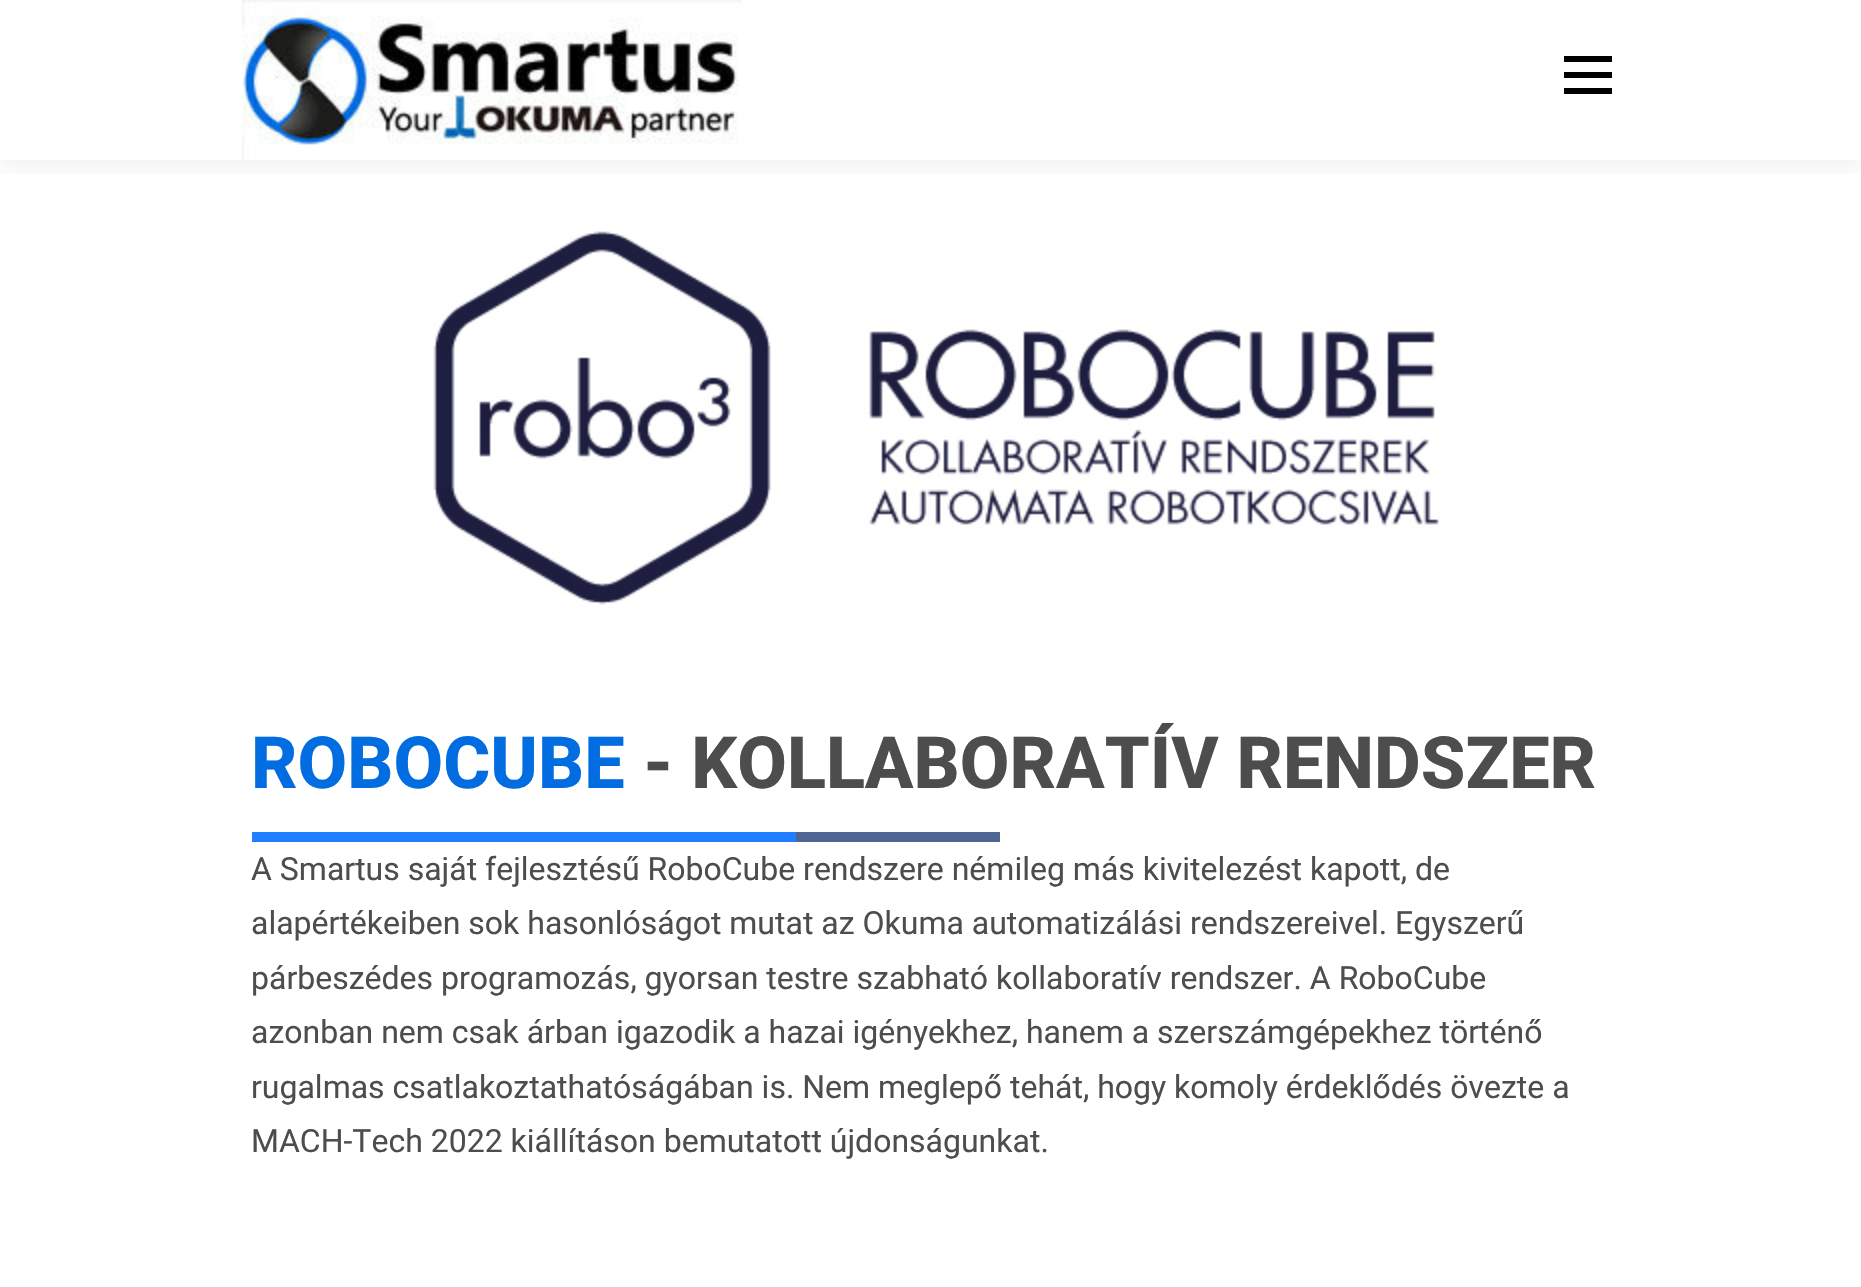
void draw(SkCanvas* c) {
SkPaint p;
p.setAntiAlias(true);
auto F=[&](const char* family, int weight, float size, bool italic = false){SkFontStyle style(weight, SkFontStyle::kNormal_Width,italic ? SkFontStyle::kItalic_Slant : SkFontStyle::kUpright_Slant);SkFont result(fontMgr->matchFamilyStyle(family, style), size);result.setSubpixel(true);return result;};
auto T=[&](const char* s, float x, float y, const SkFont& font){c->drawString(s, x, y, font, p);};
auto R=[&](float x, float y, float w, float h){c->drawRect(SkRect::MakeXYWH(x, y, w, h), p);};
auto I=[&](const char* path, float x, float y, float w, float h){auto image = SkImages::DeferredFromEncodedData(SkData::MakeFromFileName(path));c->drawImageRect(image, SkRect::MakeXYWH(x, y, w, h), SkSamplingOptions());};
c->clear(0xffffffff);
c->save();
c->clipRect(SkRect::MakeXYWH(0,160,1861,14));
p.setColor(0x0f323232);
p.setMaskFilter(SkMaskFilter::MakeBlur(kNormal_SkBlurStyle, 10));
c->drawRect(SkRect::MakeXYWH(0,10,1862,160),p);
p.setMaskFilter(nullptr);
c->restore();
I("1.png",241,0,501,160);
p.setColor(0xff000000);
R(1564,72,48,6);
R(1564,56,48,6);
R(1564,88,48,6);
I("2.png",433,231,1006,374);
auto f1 = F("Roboto",800,72);
p.setColor(0xff026de0);
T("ROBOCUBE",251,788,f1);
p.setColor(0xff4d4d4d);
T("- KOLLABORATÍV RENDSZER",643,788,f1);
p.setColor(0xff207eff);
R(252,832,544,10);
p.setColor(0xff4f6592);
R(796,832,204,10);
auto f2 = F("Roboto",400,32);
p.setColor(0xff4d4d4d);
T("A Smartus saját fejlesztésű RoboCube rendszere némileg más kivitelezést kapott, de",251,880,f2);
T("alapértékeiben sok hasonlóságot mutat az Okuma automatizálási rendszereivel. Egyszerű",251,934,f2);
T("párbeszédes programozás, gyorsan testre szabható kollaboratív rendszer. A RoboCube",251,989,f2);
T("azonban nem csak árban igazodik a hazai igényekhez, hanem a szerszámgépekhez történő",251,1043,f2);
T("rugalmas csatlakoztathatóságában is. Nem meglepő tehát, hogy komoly érdeklődés övezte a",251,1098,f2);
T("MACH-Tech 2022 kiállításon bemutatott újdonságunkat.",251,1152,f2);
}
